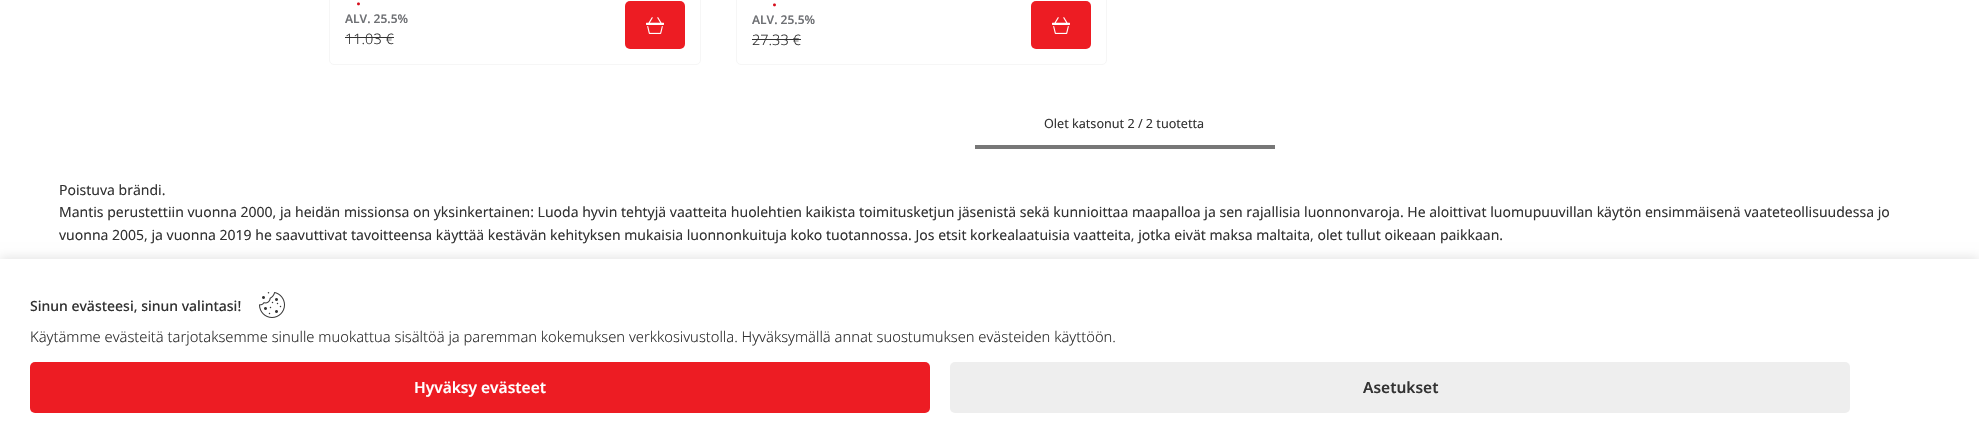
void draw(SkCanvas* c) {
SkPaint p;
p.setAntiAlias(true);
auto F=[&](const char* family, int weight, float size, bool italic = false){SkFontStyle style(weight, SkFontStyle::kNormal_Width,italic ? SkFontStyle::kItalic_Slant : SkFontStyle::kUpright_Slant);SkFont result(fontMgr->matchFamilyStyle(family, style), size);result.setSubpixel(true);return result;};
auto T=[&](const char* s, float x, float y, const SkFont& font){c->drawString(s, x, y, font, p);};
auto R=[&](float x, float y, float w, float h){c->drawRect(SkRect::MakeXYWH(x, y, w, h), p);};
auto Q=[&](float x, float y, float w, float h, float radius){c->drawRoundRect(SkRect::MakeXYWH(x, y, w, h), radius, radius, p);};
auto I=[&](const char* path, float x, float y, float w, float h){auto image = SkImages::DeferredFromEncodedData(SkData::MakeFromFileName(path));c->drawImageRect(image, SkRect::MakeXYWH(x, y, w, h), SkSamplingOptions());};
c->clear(0xffffffff);
p.setStroke(true);
p.setStrokeWidth(1);
p.setColor(0xfff6f6f6);
c->drawRoundRect(SkRect::MakeXYWH(329.5,-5.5,371,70),4.5,4.5,p);
auto f1 = F("Noto Sans",600,18);
p.setStroke(false);
p.setColor(0xffd70e1c);
T(".",356,5,f1);
auto f2 = F("Noto Sans",600,12);
p.setColor(0xff6f7175);
T("ALV. 25.5%",345,23,f2);
auto f3 = F("Noto Sans",300,14.5);
p.setColor(0xff333333);
T("11.03 €",345,44,f3);
R(345,37,49,1);
p.setColor(0xffed1c23);
Q(625,1,60,48,5);
I("1.png",646,17,18,17);
p.setStroke(true);
p.setColor(0xfff6f6f6);
c->drawRoundRect(SkRect::MakeXYWH(736.5,-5.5,370,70),4.5,4.5,p);
p.setStroke(false);
p.setColor(0xffd70e1c);
T(".",772,6,f1);
p.setColor(0xff6f7175);
T("ALV. 25.5%",752,24,f2);
p.setColor(0xff333333);
T("27.33 €",752,45,f3);
R(752,39,49,1);
p.setColor(0xffed1c23);
Q(1031,1,60,48,5);
I("1.png",1052,17,18,17);
auto f4 = F("Noto Sans",400,12.6);
p.setColor(0xff333333);
T("Olet katsonut 2 / 2 tuotetta",1044,128,f4);
p.setColor(0xff777777);
R(975,145,300,4);
auto f5 = F("Noto Sans",400,14);
p.setColor(0xff333333);
T("Poistuva brändi.",59,195,f5);
T("Mantis perustettiin vuonna 2000, ja heidän missionsa on yksinkertainen: Luoda hyvin tehtyjä vaatteita huolehtien kaikista toimitusketjun jäsenistä sekä kunnioittaa maapalloa ja sen rajallisia luonnonvaroja. He aloittivat luomupuuvillan käytön ensimmäisenä vaateteollisuudessa jo",59,217,f5);
T("vuonna 2005, ja vuonna 2019 he saavuttivat tavoitteensa käyttää kestävän kehityksen mukaisia luonnonkuituja koko tuotannossa. Jos etsit korkealaatuisia vaatteita, jotka eivät maksa maltaita, olet tullut oikeaan paikkaan.",59,240,f5);
p.setColor(0x1a000000);
p.setMaskFilter(SkMaskFilter::MakeBlur(kNormal_SkBlurStyle, 5));
c->drawRect(SkRect::MakeXYWH(0,257,1979,184),p);
p.setMaskFilter(nullptr);
p.setColor(0xffffffff);
R(0,259,1979,184);
auto f6 = F("Noto Sans",500,14);
p.setColor(0xff333333);
T("Sinun evästeesi, sinun valintasi!",30,311,f6);
I("2.png",259,292,26,26);
auto f7 = F("Noto Sans",300,14.7);
T("Käytämme evästeitä tarjotaksemme sinulle muokattua sisältöä ja paremman kokemuksen verkkosivustolla. Hyväksymällä annat suostumuksen evästeiden käyttöön.",30,342,f7);
p.setColor(0xffed1c23);
Q(30,362,900,51,5);
auto f8 = F("Noto Sans",600,15.5);
p.setColor(0xffffffff);
T("Hyväksy evästeet",414,393,f8);
p.setColor(0xffeeeeee);
Q(950,362,900,51,5);
p.setColor(0xff333333);
T("Asetukset",1363,393,f8);
}
